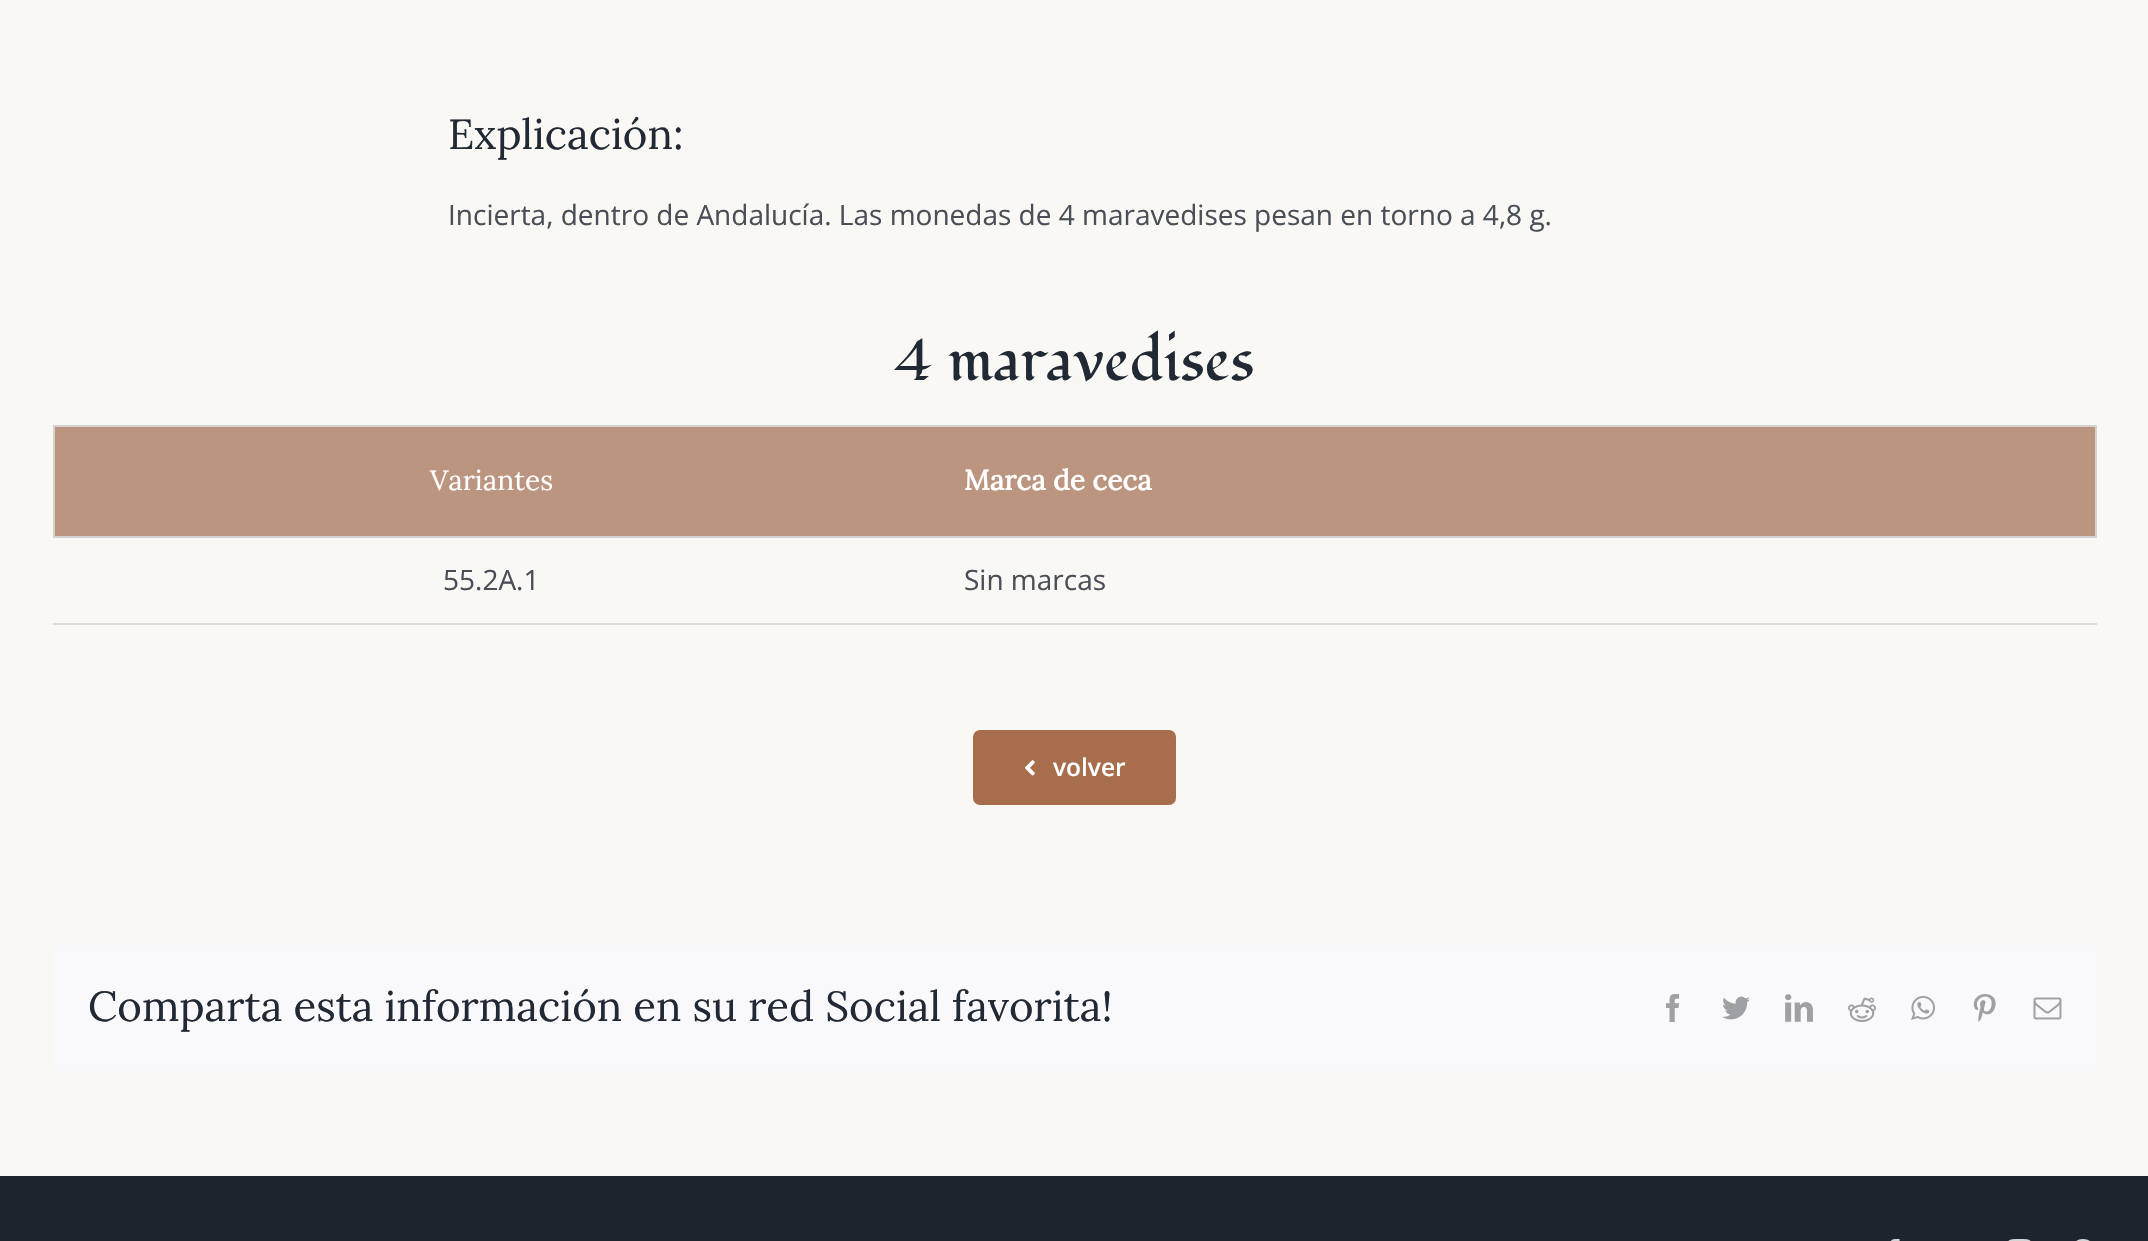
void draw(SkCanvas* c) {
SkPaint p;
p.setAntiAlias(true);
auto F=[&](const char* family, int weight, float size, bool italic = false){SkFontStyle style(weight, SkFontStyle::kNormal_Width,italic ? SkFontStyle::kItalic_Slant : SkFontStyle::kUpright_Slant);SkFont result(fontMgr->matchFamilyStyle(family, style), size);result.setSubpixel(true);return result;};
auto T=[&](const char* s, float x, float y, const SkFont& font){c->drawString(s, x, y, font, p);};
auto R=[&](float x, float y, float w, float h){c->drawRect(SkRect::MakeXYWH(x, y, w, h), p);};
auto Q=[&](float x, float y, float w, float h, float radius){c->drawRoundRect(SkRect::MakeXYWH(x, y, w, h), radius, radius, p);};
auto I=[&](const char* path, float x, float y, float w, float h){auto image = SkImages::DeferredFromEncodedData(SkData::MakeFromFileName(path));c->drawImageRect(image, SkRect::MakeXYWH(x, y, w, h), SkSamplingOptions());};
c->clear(0xfff9f8f5);
auto f1 = F("Lora",400,42);
p.setColor(0xff212934);
T("Explicación:",448,149,f1);
auto f2 = F("Open Sans",400,28);
p.setColor(0xff4a4e57);
T("Incierta, dentro de Andalucía. Las monedas de 4 maravedises pesan en torno a 4,8 g.",448,225,f2);
auto f3 = F("Fondamento",400,59.5);
p.setColor(0xff212934);
T("4 maravedises",894,380,f3);
p.setColor(0xffbb9580);
R(55,427,2040,109);
p.setColor(0xffd3d3d3);
R(53,425,2044,2);
R(2095,425,2,112);
R(53,536,2044,2);
R(53,425,2,112);
auto f4 = F("Lora",400,28);
p.setColor(0xffffffff);
T("Variantes",430,490,f4);
auto f5 = F("Lora",700,28);
T("Marca de ceca",964,490,f5);
p.setColor(0xff4a4e57);
T("55.2A.1",443,590,f2);
p.setColor(0xffdcdcdc);
R(53,623,2044,2);
p.setColor(0xff4a4e57);
T("Sin marcas",964,590,f2);
p.setColor(0xffa76d4d);
Q(973,730,203,75,7);
I("1.png",1025,760,10,16);
auto f6 = F("Open Sans",600,24.5);
p.setColor(0xffffffff);
T("volver",1053,776,f6);
p.setColor(0xfff9f9fb);
R(53,945,2044,126);
p.setColor(0xff212934);
T("Comparta esta información en su red Social favorita!",88,1021,f1);
I("2.png",1666,994,14,28);
I("3.png",1722,996,28,24);
I("4.png",1785,994,28,28);
I("5.png",1848,997,28,25);
I("6.png",1911,995,24,25);
I("7.png",1973,994,23,28);
I("8.png",2033,997,29,23);
p.setColor(0xff1d242d);
R(0,1176,2148,65);
I("9.png",1891,1239,9,2);
I("10.png",2008,1239,23,2);
I("11.png",2076,1239,14,2);
}
